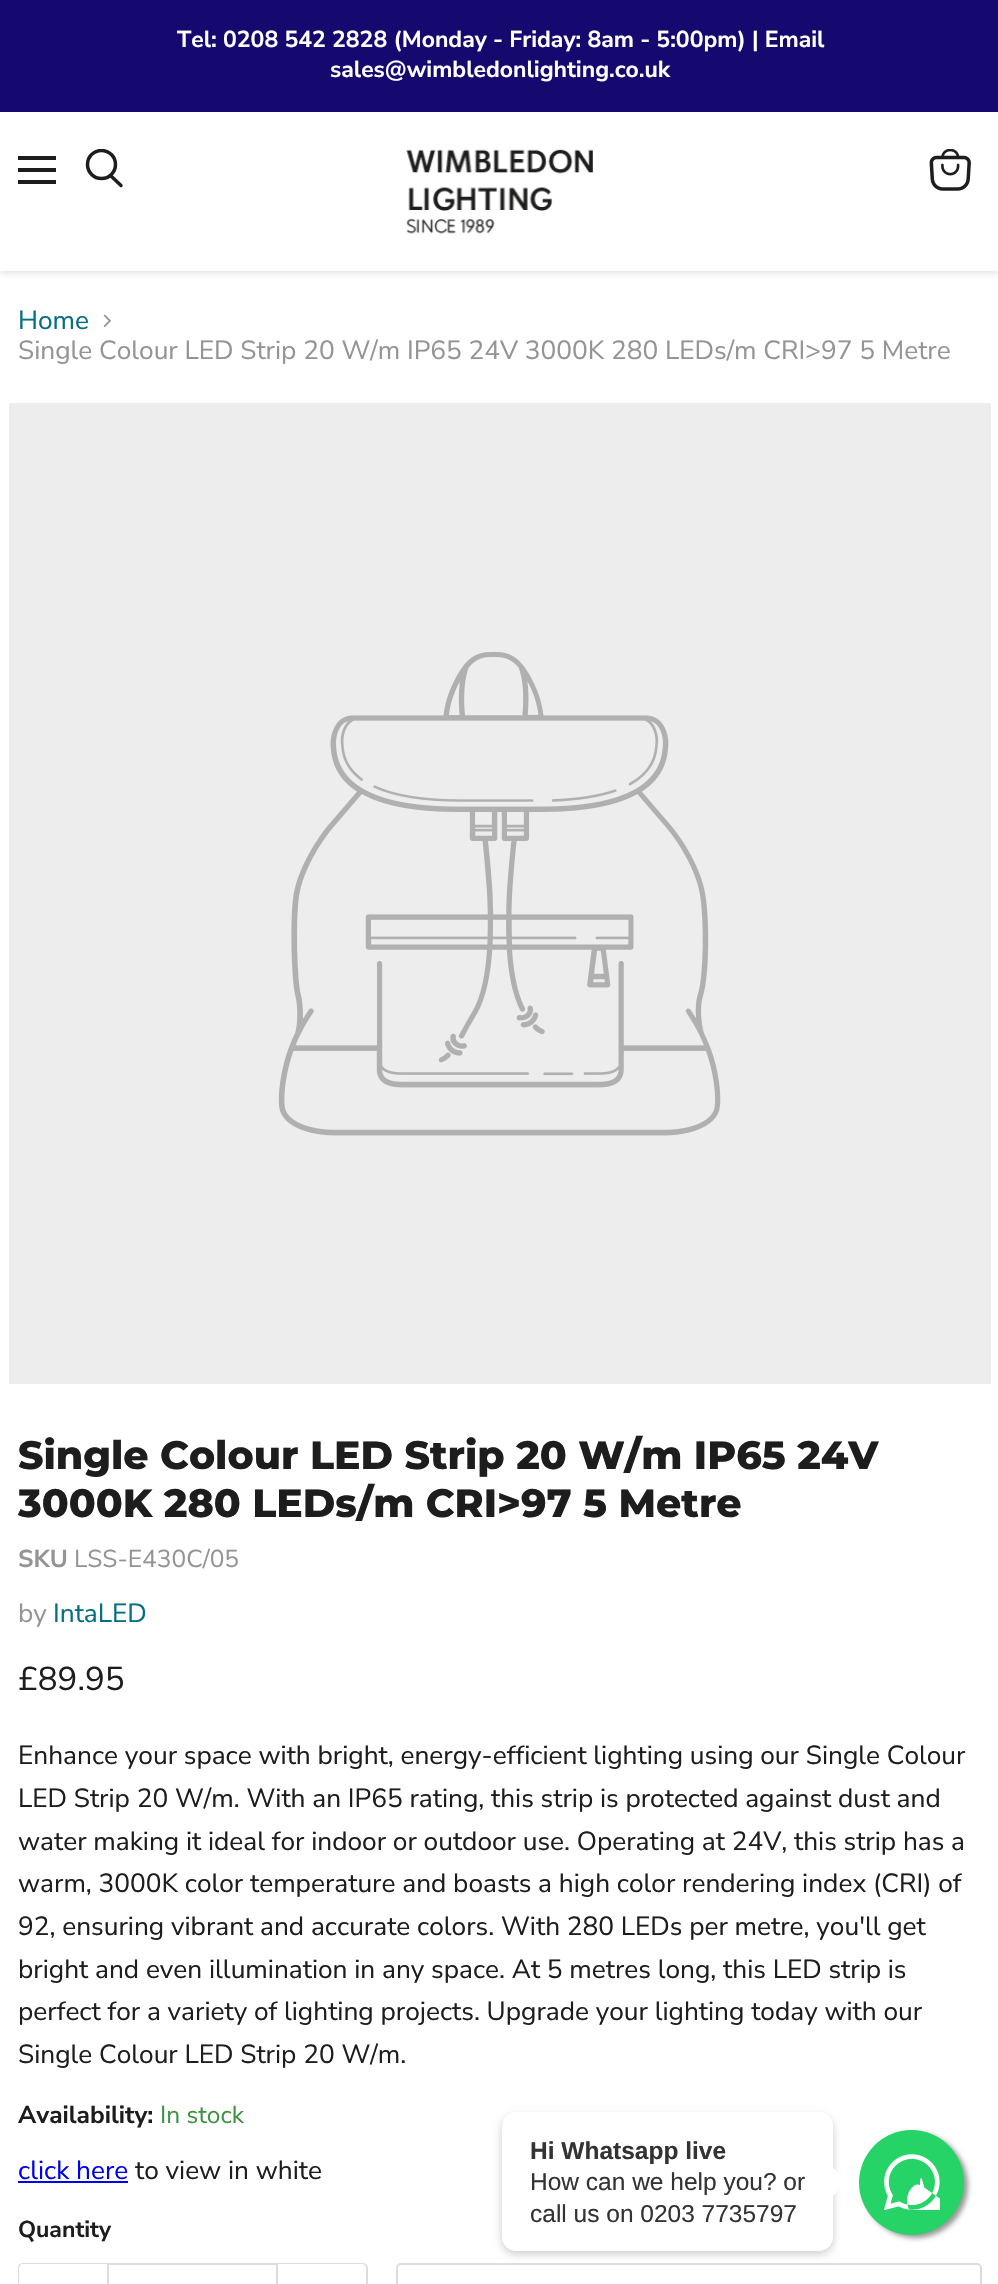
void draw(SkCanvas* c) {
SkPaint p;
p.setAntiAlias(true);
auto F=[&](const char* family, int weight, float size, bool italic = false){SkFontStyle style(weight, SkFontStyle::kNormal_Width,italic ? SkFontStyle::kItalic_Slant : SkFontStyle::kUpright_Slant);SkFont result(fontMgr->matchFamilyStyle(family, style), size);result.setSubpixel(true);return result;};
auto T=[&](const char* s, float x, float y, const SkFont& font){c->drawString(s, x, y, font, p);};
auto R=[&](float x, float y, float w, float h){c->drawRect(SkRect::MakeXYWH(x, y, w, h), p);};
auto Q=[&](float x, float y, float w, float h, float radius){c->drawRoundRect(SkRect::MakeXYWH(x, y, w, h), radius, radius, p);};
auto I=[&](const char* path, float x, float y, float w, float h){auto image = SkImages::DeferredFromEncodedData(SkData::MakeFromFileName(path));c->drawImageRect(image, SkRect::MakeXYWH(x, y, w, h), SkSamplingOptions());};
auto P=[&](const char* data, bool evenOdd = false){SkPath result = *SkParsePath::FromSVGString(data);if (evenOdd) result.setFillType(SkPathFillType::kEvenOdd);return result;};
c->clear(0xffffffff);
c->save();
c->clipRect(SkRect::MakeXYWH(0,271,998,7));
p.setColor(0x40808080);
p.setMaskFilter(SkMaskFilter::MakeBlur(kNormal_SkBlurStyle, 3.5));
c->drawRect(SkRect::MakeXYWH(0,114,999,159),p);
p.setMaskFilter(nullptr);
c->restore();
p.setColor(0xff150970);
R(0,0,998,112);
auto f1 = F("Nunito Sans",700,23);
p.setColor(0xffffffff);
T("Tel: 0208 542 2828 (Monday - Friday: 8am - 5:00pm) | Email",177,47,f1);
T("sales@wimbledonlighting.co.uk",330,77,f1);
p.setColor(0xff1d1d1d);
R(18,156,38,4);
R(18,168,38,4);
R(18,180,38,4);
p.setStroke(true);
p.setStrokeWidth(3.5);
p.setStrokeCap(SkPaint::kRound_Cap);
c->drawPath(P("M121 185.5l-10-9.5"),p);
c->save();
c->clipRect(SkRect::MakeXYWH(84,149,40,42));
p.setStrokeCap(SkPaint::kButt_Cap);
c->drawCircle(101.5,164.5,14,p);
c->restore();
I("1.png",406,149,187,85);
I("2.png",929,149,42,42);
auto f2 = F("Nunito Sans",400,26.25);
p.setStroke(false);
p.setColor(0xff046e82);
T("Home",18,329,f2);
I("3.png",103,314,8,14);
p.setColor(0xff949494);
T("Single Colour LED Strip 20 W/m IP65 24V 3000K 280 LEDs/m CRI>97 5 Metre",18,359,f2);
p.setColor(0xffededed);
R(9,403,982,981);
I("4.png",278,651,443,485);
auto f3 = F("Montserrat",800,39.4);
p.setColor(0xff1d1d1d);
T("Single Colour LED Strip 20 W/m IP65 24V",18,1469,f3);
T("3000K 280 LEDs/m CRI>97 5 Metre",18,1517,f3);
auto f4 = F("Nunito Sans",700,24.5);
p.setColor(0xff949494);
T("SKU",18,1567,f4);
auto f5 = F("Nunito Sans",400,24.5);
T("LSS-E430C/05",74,1567,f5);
T("by",18,1622,f2);
p.setColor(0xff046e82);
T("IntaLED",53,1622,f2);
auto f6 = F("Nunito Sans",400,33);
p.setColor(0xff1d1d1d);
T("£89.95",18,1690,f6);
T("Enhance your space with bright, energy-efficient lighting using our Single Colour",18,1764,f2);
T("LED Strip 20 W/m. With an IP65 rating, this strip is protected against dust and",18,1807,f2);
T("water making it ideal for indoor or outdoor use. Operating at 24V, this strip has a",18,1850,f2);
T("warm, 3000K color temperature and boasts a high color rendering index (CRI) of",18,1892,f2);
T("92, ensuring vibrant and accurate colors. With 280 LEDs per metre, you'll get",18,1935,f2);
T("bright and even illumination in any space. At 5 metres long, this LED strip is",18,1978,f2);
T("perfect for a variety of lighting projects. Upgrade your lighting today with our",18,2020,f2);
T("Single Colour LED Strip 20 W/m.",18,2063,f2);
T("Availability:",18,2123,f4);
p.setColor(0xff3c9342);
T("In stock",160,2123,f5);
p.setColor(0xff0000ee);
T("click here",18,2179,f2);
R(18,2181,110,2);
p.setColor(0xff1d1d1d);
T("to view in white",135,2179,f2);
T("Quantity",18,2237,f1);
p.setColor(0xffdddddd);
c->drawPath(P("M23 2263h84v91h-84c-3 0-5-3-5-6v-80c0-3 2-5 5-5zm0 1h84v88h-84c-2 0-4-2-4-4v-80c0-2 2-4 4-4z",true),p);
p.setStroke(true);
p.setStrokeWidth(2);
c->drawRect(SkRect::MakeXYWH(108,2264,169,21),p);
p.setStroke(false);
c->drawPath(P("M278 2263h84c3 0 6 2 6 5v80c0 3-3 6-6 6h-84zm0 1h84c2 0 4 2 4 4v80c0 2-2 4-4 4h-84z",true),p);
p.setStroke(true);
c->drawRoundRect(SkRect::MakeXYWH(397,2264,584,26),4,4,p);
p.setStroke(false);
p.setColor(0x33000000);
p.setMaskFilter(SkMaskFilter::MakeBlur(kNormal_SkBlurStyle, 4.5));
c->drawRoundRect(SkRect::MakeXYWH(502,2116,331,138),14,14,p);
p.setMaskFilter(nullptr);
p.setColor(0xffffffff);
Q(502,2112,331,139,14);
auto f7 = F("Liberation Sans",700,24.5);
p.setColor(0xff333333);
T("Hi Whatsapp live",530,2159,f7);
auto f8 = F("Liberation Sans",400,24.5);
T("How can we help you? or",530,2190,f8);
p.setColor(0xffffffff);
c->drawPath(P("M833 2196v-28l14 14z"),p);
p.setColor(0xff333333);
T("call us on 0203 7735797",530,2222,f8);
p.setColor(0xff999999);
p.setMaskFilter(SkMaskFilter::MakeBlur(kNormal_SkBlurStyle, 2.5));
c->drawRoundRect(SkRect::MakeXYWH(863,2133,105,105),52.5,52.5,p);
p.setMaskFilter(nullptr);
p.setColor(0xff25d366);
c->drawCircle(911.5,2182.5,52.5,p);
I("5.png",884,2154,56,56);
}
